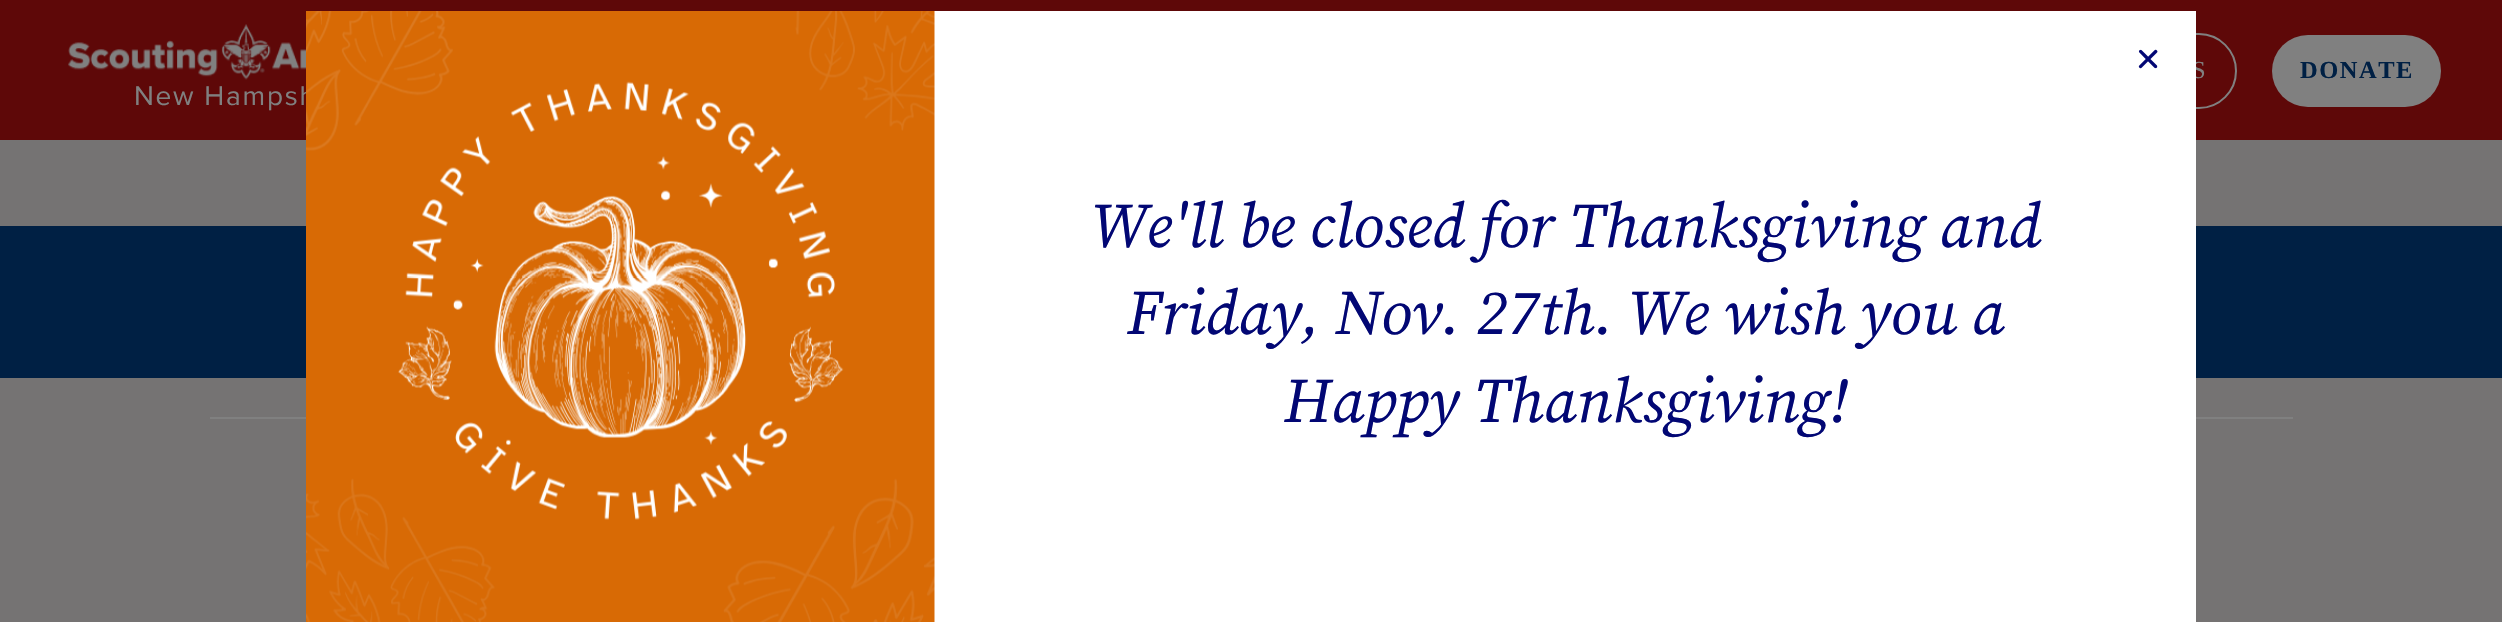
void draw(SkCanvas* c) {
SkPaint p;
p.setAntiAlias(true);
auto F=[&](const char* family, int weight, float size, bool italic = false){SkFontStyle style(weight, SkFontStyle::kNormal_Width,italic ? SkFontStyle::kItalic_Slant : SkFontStyle::kUpright_Slant);SkFont result(fontMgr->matchFamilyStyle(family, style), size);result.setSubpixel(true);return result;};
auto T=[&](const char* s, float x, float y, const SkFont& font){c->drawString(s, x, y, font, p);};
auto L=[&](const char* s, float x, float y, const SkFont& font, const SkPaint& ink, float letter, float word){std::vector<SkGlyphID> glyphs(font.countText(s, strlen(s), SkTextEncoding::kUTF8));std::vector<float> xs(glyphs.size());font.textToGlyphs(s, strlen(s), SkTextEncoding::kUTF8, glyphs);font.getXPos(glyphs, xs, x);float extra = 0;for (size_t i = 0; i < glyphs.size(); i++) {xs[i] += extra;extra += letter + word * (glyphs[i] == font.unicharToGlyph(' '));}c->drawTextBlob(SkTextBlob::MakeFromPosHGlyphs(glyphs, xs, y, font), 0, 0, ink);};
auto R=[&](float x, float y, float w, float h){c->drawRect(SkRect::MakeXYWH(x, y, w, h), p);};
auto Q=[&](float x, float y, float w, float h, float radius){c->drawRoundRect(SkRect::MakeXYWH(x, y, w, h), radius, radius, p);};
auto I=[&](const char* path, float x, float y, float w, float h){auto image = SkImages::DeferredFromEncodedData(SkData::MakeFromFileName(path));c->drawImageRect(image, SkRect::MakeXYWH(x, y, w, h), SkSamplingOptions());};
c->clear(0xff002044);
p.setColor(0xff5e0808);
R(0,0,2502,140);
p.setStroke(true);
p.setStrokeWidth(2);
p.setColor(0xff808080);
c->drawRoundRect(SkRect::MakeXYWH(2012,34,224,74),37,37,p);
auto f1 = F("Liberation Serif",400,24.5);
p.setStroke(false);
L("S",2192,78,f1,p,1.5,0);
Q(2272,35,169,72,36);
auto f2 = F("Liberation Serif",700,24.5);
p.setColor(0xff002044);
L("DONATE",2300,78,f2,p,1.5,0);
I("1.png",68,24,238,56);
auto f3 = F("Proxima Nova",400,28);
p.setColor(0xff808080);
L("New Hampsh",134,105,f3,p,1.75,0);
p.setColor(0xff757373);
R(0,140,2502,86);
R(0,378,2502,244);
p.setColor(0xff808080);
R(210,417,2083,2);
p.setColor(0xffffffff);
R(934,11,1262,611);
I("2.png",2138,49,20,20);
I("3.png",306,11,629,611);
auto f4 = F("Source Serif Pro",400,63,true);
p.setColor(0xff020774);
T("We'll be closed for Thanksgiving and",1091,247,f4);
T("Friday, Nov. 27th. We wish you a",1126,334,f4);
T("Happy Thanksgiving!",1283,422,f4);
}
